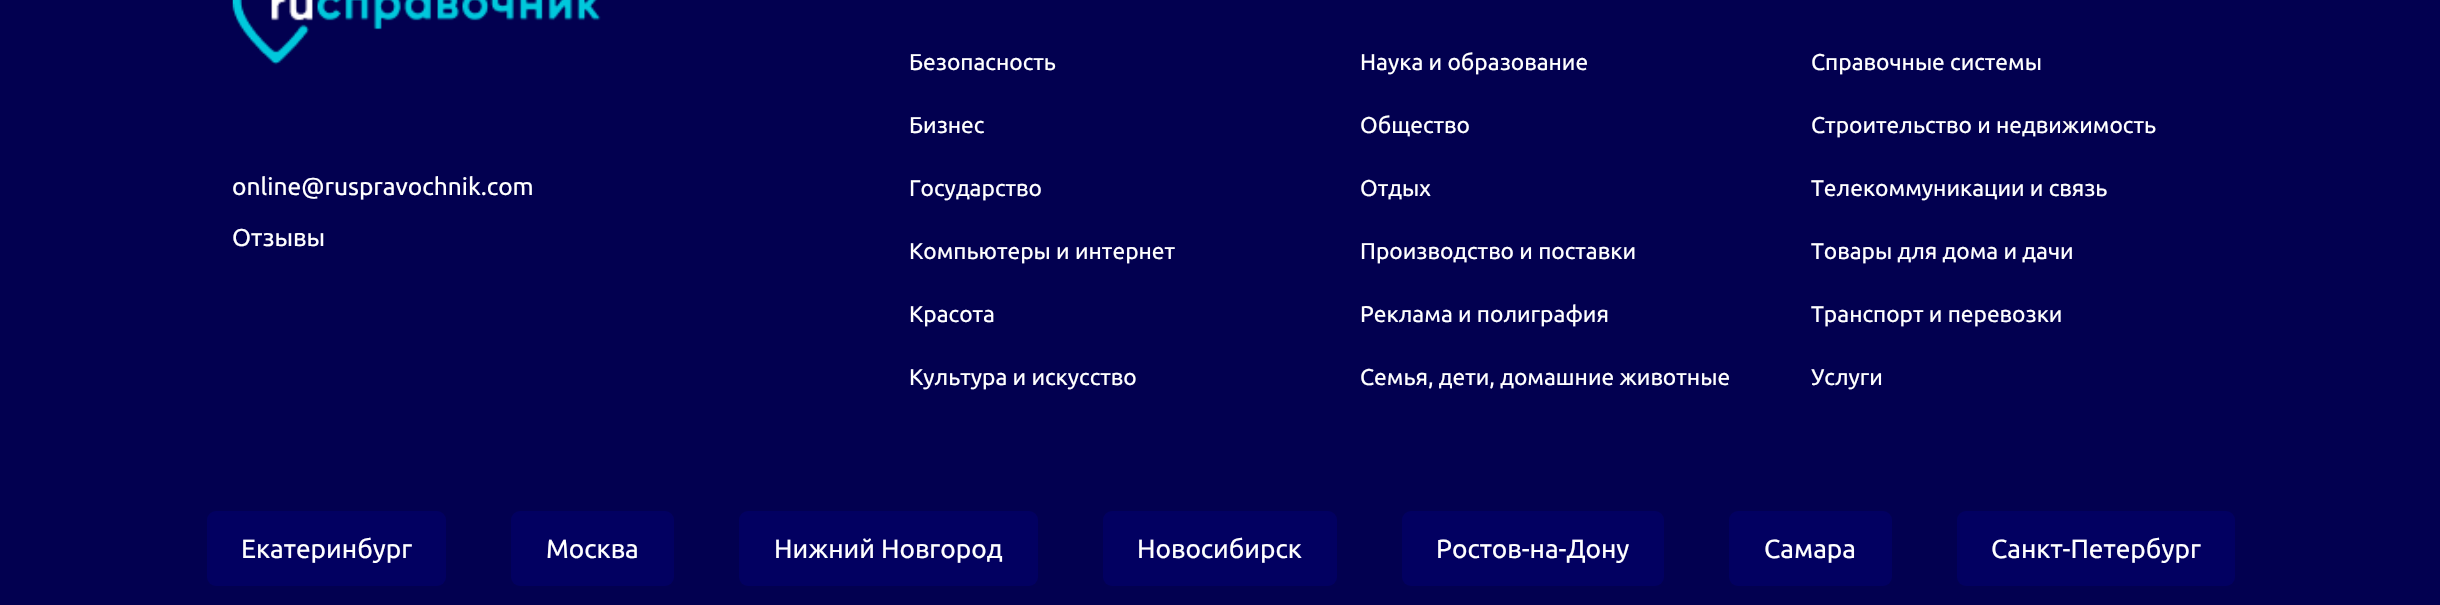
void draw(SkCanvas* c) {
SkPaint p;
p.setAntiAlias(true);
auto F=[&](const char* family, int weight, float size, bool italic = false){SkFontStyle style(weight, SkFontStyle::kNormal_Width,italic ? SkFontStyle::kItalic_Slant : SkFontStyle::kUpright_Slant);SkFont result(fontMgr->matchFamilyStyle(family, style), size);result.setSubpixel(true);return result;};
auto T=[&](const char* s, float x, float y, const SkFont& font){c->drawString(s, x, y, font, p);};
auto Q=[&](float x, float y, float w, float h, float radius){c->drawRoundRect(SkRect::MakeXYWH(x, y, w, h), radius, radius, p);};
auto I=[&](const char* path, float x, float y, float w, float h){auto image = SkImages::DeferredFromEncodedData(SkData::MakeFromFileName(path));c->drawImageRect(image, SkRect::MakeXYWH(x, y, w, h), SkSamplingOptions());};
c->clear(0xff020050);
I("1.png",232,0,369,65);
auto f1 = F("Ubuntu",400,24.5);
p.setColor(0xffffffff);
T("online@ruspravochnik.com",232,195,f1);
T("Отзывы",232,246,f1);
auto f2 = F("Ubuntu",400,22.75);
T("Безопасность",909,70,f2);
T("Бизнес",909,133,f2);
T("Государство",909,196,f2);
T("Компьютеры и интернет",909,259,f2);
T("Красота",909,322,f2);
T("Культура и искусство",909,385,f2);
T("Наука и образование",1360,70,f2);
T("Общество",1360,133,f2);
T("Отдых",1360,196,f2);
T("Производство и поставки",1360,259,f2);
T("Реклама и полиграфия",1360,322,f2);
T("Семья, дети, домашние животные",1360,385,f2);
T("Справочные системы",1811,70,f2);
T("Строительство и недвижимость",1811,133,f2);
T("Телекоммуникации и связь",1811,196,f2);
T("Товары для дома и дачи",1811,259,f2);
T("Транспорт и перевозки",1811,322,f2);
T("Услуги",1811,385,f2);
p.setColor(0xff020061);
Q(207,511,239,75,9);
auto f3 = F("Ubuntu",400,26.25);
p.setColor(0xffffffff);
T("Екатеринбург",241,558,f3);
p.setColor(0xff020061);
Q(511,511,163,75,9);
p.setColor(0xffffffff);
T("Москва",546,558,f3);
p.setColor(0xff020061);
Q(739,511,299,75,9);
p.setColor(0xffffffff);
T("Нижний Новгород",774,558,f3);
p.setColor(0xff020061);
Q(1103,511,234,75,9);
p.setColor(0xffffffff);
T("Новосибирск",1137,558,f3);
p.setColor(0xff020061);
Q(1402,511,262,75,9);
p.setColor(0xffffffff);
T("Ростов-на-Дону",1436,558,f3);
p.setColor(0xff020061);
Q(1729,511,163,75,9);
p.setColor(0xffffffff);
T("Самара",1764,558,f3);
p.setColor(0xff020061);
Q(1957,511,278,75,9);
p.setColor(0xffffffff);
T("Санкт-Петербург",1991,558,f3);
}
